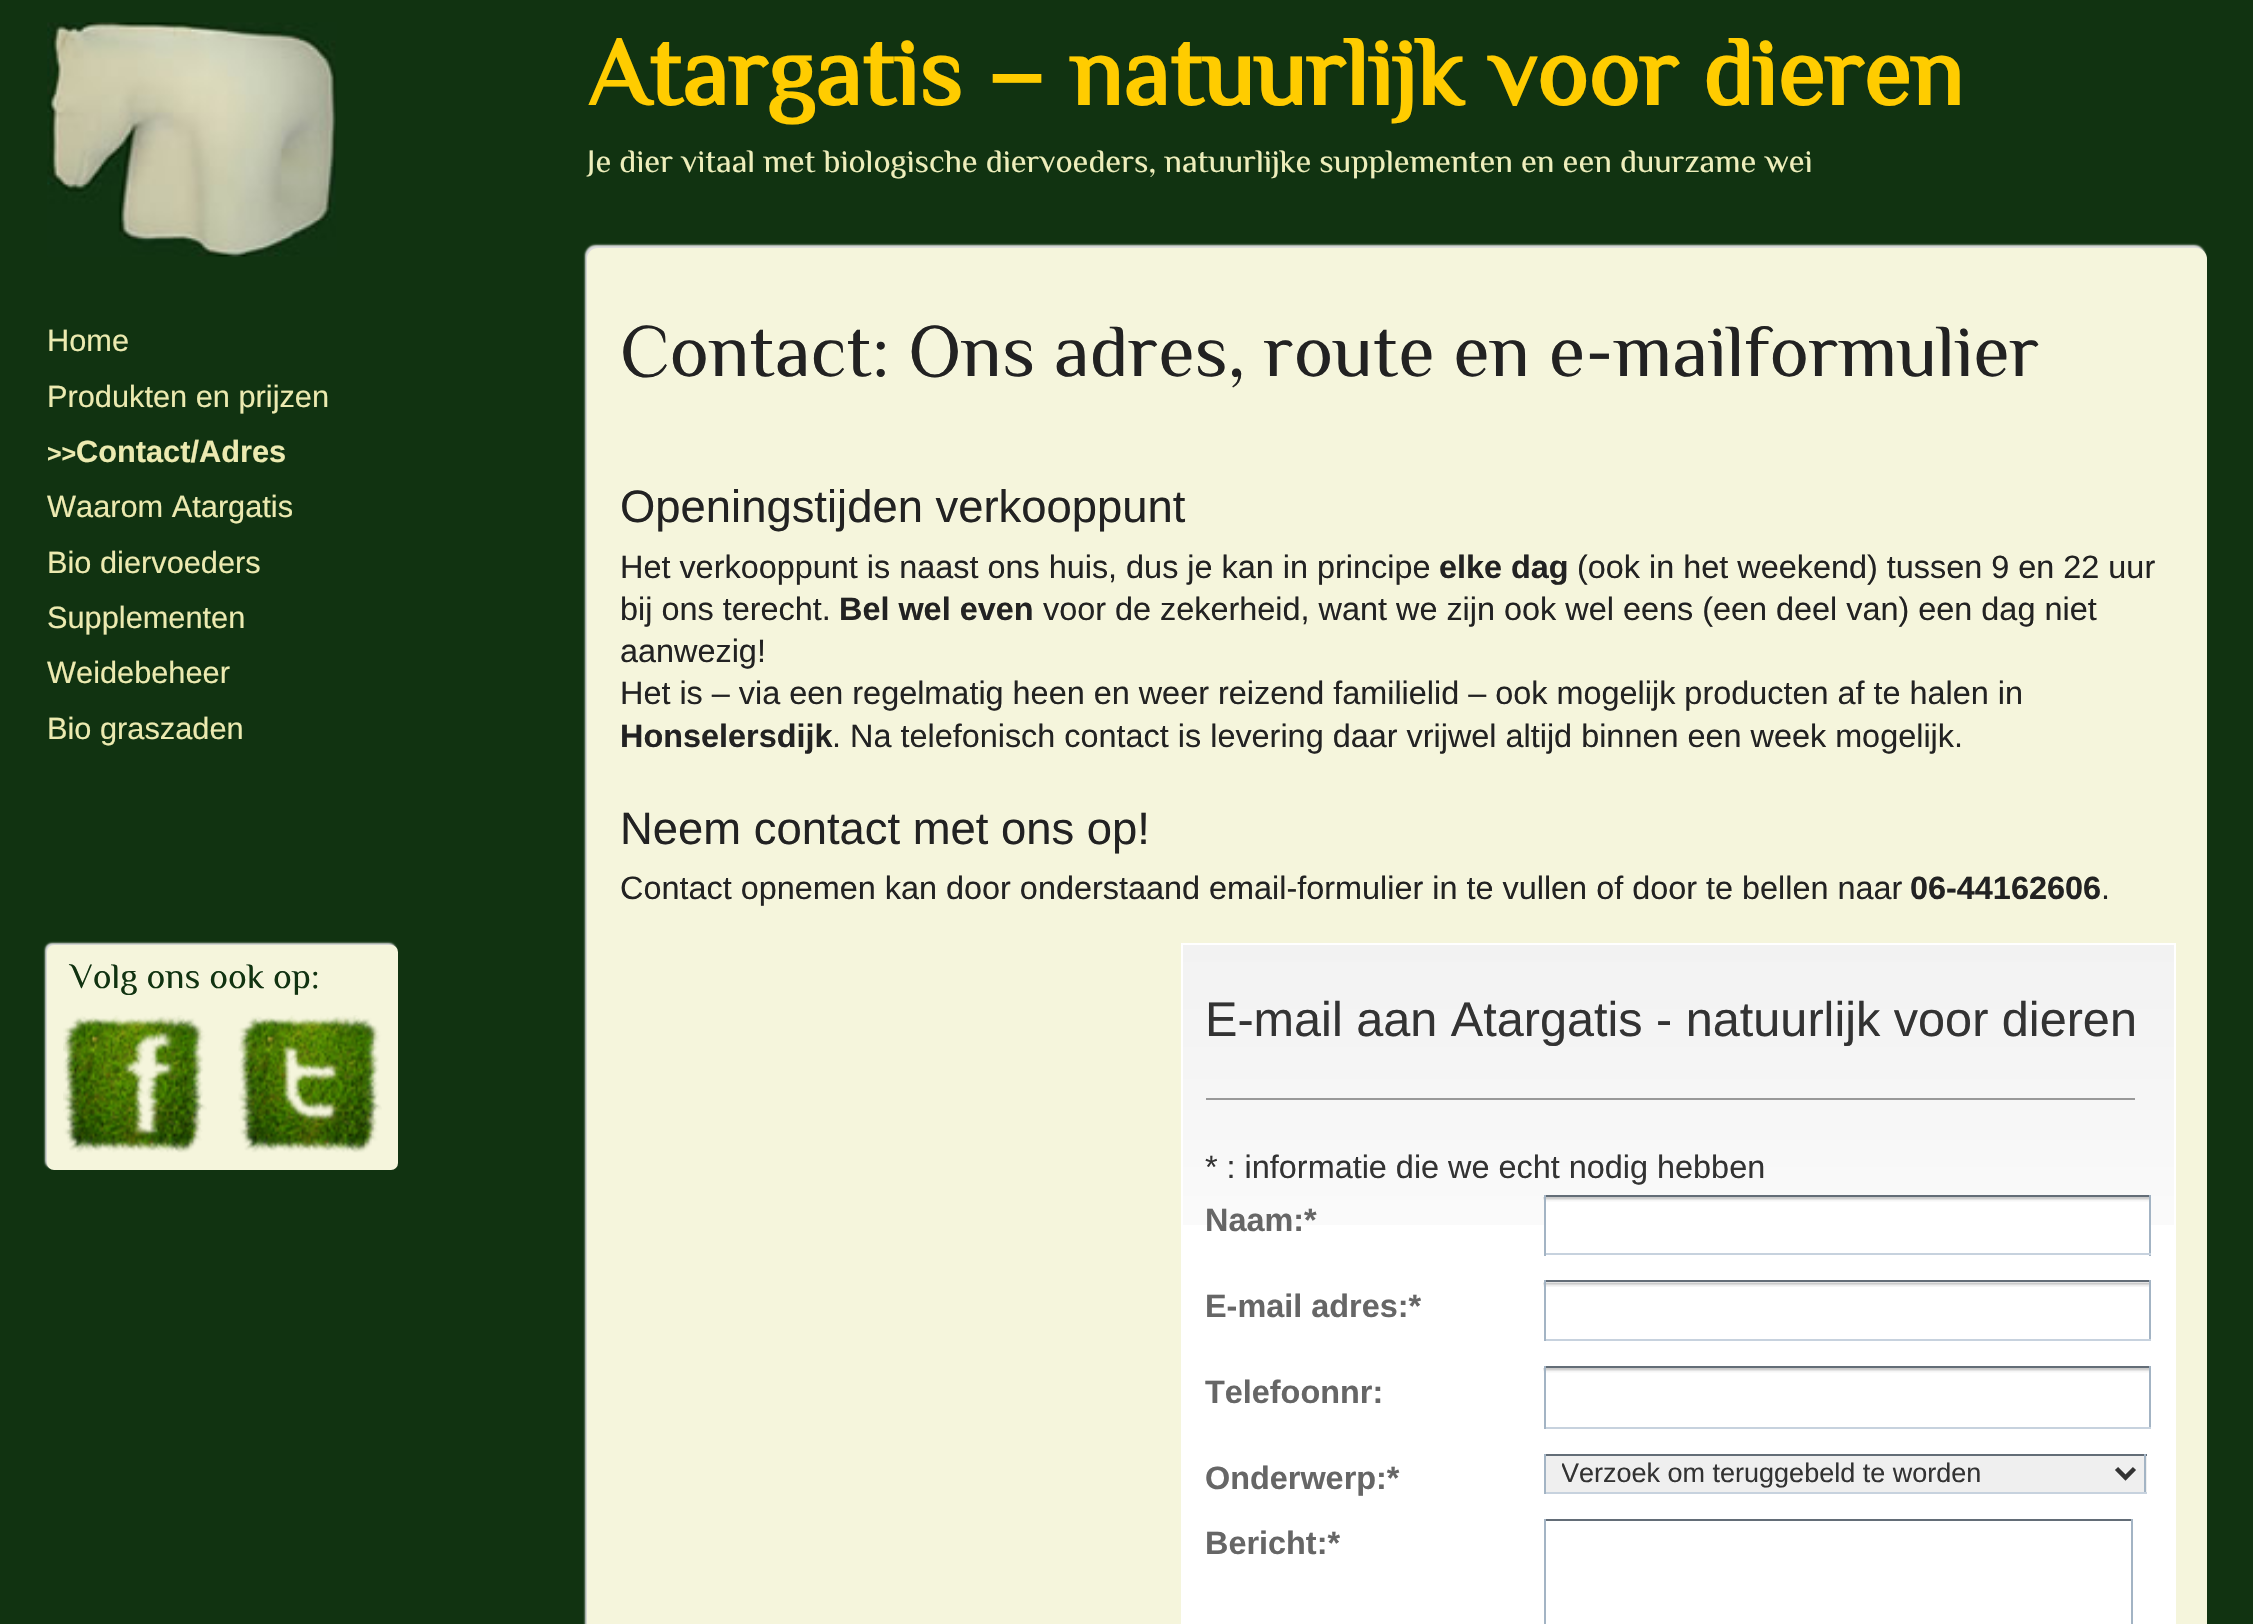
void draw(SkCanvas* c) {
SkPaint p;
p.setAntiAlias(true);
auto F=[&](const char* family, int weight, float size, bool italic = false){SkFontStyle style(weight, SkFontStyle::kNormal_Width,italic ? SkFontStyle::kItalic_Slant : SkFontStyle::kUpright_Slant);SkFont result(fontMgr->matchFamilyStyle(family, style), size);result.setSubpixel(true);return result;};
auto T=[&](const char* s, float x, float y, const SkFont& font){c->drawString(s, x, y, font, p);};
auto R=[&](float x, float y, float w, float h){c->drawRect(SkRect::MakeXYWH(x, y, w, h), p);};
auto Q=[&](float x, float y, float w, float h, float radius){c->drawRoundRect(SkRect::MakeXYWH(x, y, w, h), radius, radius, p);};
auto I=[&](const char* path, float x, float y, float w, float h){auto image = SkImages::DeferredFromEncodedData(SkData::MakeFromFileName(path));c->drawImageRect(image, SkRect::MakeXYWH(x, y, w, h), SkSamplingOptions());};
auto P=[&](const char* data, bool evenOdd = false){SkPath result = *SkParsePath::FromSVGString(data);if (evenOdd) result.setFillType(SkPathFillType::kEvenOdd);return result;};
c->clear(0xff113311);
auto f1 = F("Philosopher",700,97.25);
p.setColor(0xffffcc00);
T("Atargatis – natuurlijk voor dieren",587,105,f1);
auto f2 = F("Philosopher",400,32.4);
p.setColor(0xffeeeebb);
T("Je dier vitaal met biologische diervoeders, natuurlijke supplementen en een duurzame wei",587,172,f2);
I("1.png",47,22,290,235);
auto f3 = F("Liberation Sans",400,30.75);
p.setColor(0xffeceab0);
T("Home",47,351,f3);
T("Produkten en prijzen",47,407,f3);
auto f4 = F("Liberation Sans",700,25);
T(">>",47,462,f4);
auto f5 = F("Liberation Sans",700,30.75);
T("Contact/Adres",76,462,f5);
T("Waarom Atargatis",47,517,f3);
T("Bio diervoeders",47,573,f3);
T("Supplementen",47,628,f3);
T("Weidebeheer",47,683,f3);
T("Bio graszaden",47,739,f3);
p.setColor(0xffdddddd);
p.setMaskFilter(SkMaskFilter::MakeBlur(kNormal_SkBlurStyle, 1));
c->drawRoundRect(SkRect::MakeXYWH(585,245,1620,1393),11,11,p);
p.setMaskFilter(nullptr);
p.setColor(0xfff5f5dc);
Q(587,248,1620,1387,11);
auto f6 = F("Philosopher",400,74.5);
p.setColor(0xff222222);
T("Contact: Ons adres, route en e-mailformulier",620,376,f6);
auto f7 = F("Liberation Sans",400,45.4);
T("Openingstijden verkooppunt",620,522,f7);
auto f8 = F("Liberation Sans",400,32.4);
T("Het verkooppunt is naast ons huis, dus je kan in principe",620,578,f8);
auto f9 = F("Liberation Sans",700,32.4);
T("elke dag",1439,578,f9);
T("(ook in het weekend) tussen 9 en 22 uur",1577,578,f8);
T("bij ons terecht.",620,620,f8);
T("Bel wel even",839,620,f9);
T("voor de zekerheid, want we zijn ook wel eens (een deel van) een dag niet",1043,620,f8);
T("aanwezig!",620,662,f8);
T("Het is – via een regelmatig heen en weer reizend familielid – ook mogelijk producten af te halen in",620,704,f8);
T("Honselersdijk",620,747,f9);
T(". Na telefonisch contact is levering daar vrijwel altijd binnen een week mogelijk.",832,747,f8);
T("Neem contact met ons op!",620,844,f7);
T("Contact opnemen kan door onderstaand email-formulier in te vullen of door te bellen naar",620,899,f8);
T("06-44162606",1910,899,f9);
T(".",2101,899,f8);
p.setColor(0xffffffff);
R(1181,943,995,681);
I("2.png",1183,945,991,280);
p.setColor(0xff999999);
R(1206,1098,929,2);
auto f10 = F("Liberation Sans",400,48.6);
p.setColor(0xff333333);
T("E-mail aan Atargatis - natuurlijk voor dieren",1205,1036,f10);
T("* : informatie die we echt nodig hebben",1205,1178,f8);
p.setColor(0xff666666);
T("Naam:*",1205,1231,f9);
p.setColor(0xffffffff);
R(1546,1201,603,24);
I("3.png",1543,1197,606,5);
p.setColor(0xff636d77);
R(1544,1195,607,2);
p.setColor(0xffa3b4c4);
R(2149,1195,2,61);
p.setColor(0xffc7d2de);
R(1544,1253,607,2);
p.setColor(0xffa3b4c4);
R(1544,1195,2,61);
p.setColor(0xff666666);
T("E-mail adres:*",1205,1317,f9);
I("4.png",1543,1282,606,5);
p.setColor(0xff636d77);
R(1544,1280,607,2);
p.setColor(0xffa3b4c4);
R(2149,1280,2,61);
p.setColor(0xffc7d2de);
R(1544,1339,607,2);
p.setColor(0xffa3b4c4);
R(1544,1280,2,61);
p.setColor(0xff666666);
T("Telefoonnr:",1205,1403,f9);
I("5.png",1543,1368,606,5);
p.setColor(0xff636d77);
R(1544,1366,607,2);
p.setColor(0xffa3b4c4);
R(2149,1366,2,63);
p.setColor(0xffc7d2de);
R(1544,1427,607,2);
p.setColor(0xffa3b4c4);
R(1544,1366,2,63);
p.setColor(0xff666666);
T("Onderwerp:*",1205,1489,f9);
p.setColor(0xffefefef);
R(1546,1456,601,36);
p.setColor(0xff636d77);
R(1544,1454,603,2);
p.setColor(0xffa3b4c4);
R(2144,1454,2,40);
p.setColor(0xffc7d2de);
R(1544,1492,603,2);
p.setColor(0xffa3b4c4);
R(1544,1454,2,40);
p.setStroke(true);
p.setStrokeWidth(4.5);
p.setColor(0xff333333);
c->drawPath(P("M2116.5 1468.5l9 9l9-9"),p);
c->save();
c->clipRect(SkRect::MakeXYWH(1562,1456,546,36));
auto f11 = F("Liberation Sans",400,27);
p.setStroke(false);
T("Verzoek om teruggebeld te worden",1561,1482,f11);
c->restore();
p.setColor(0xff666666);
T("Bericht:*",1205,1554,f9);
p.setColor(0xff636d77);
R(1544,1519,589,2);
p.setColor(0xffa3b4c4);
R(2131,1519,2,105);
R(1544,1519,2,105);
p.setColor(0xffdddddd);
p.setMaskFilter(SkMaskFilter::MakeBlur(kNormal_SkBlurStyle, 1));
c->drawRoundRect(SkRect::MakeXYWH(45,943,351,225),7,7,p);
p.setMaskFilter(nullptr);
p.setColor(0xfff5f5dc);
Q(47,945,351,225,7);
auto f12 = F("Philosopher",400,35.5);
p.setColor(0xff113311);
T("Volg ons ook op:",70,988,f12);
I("6.png",63,1015,144,138);
I("7.png",238,1015,144,138);
}
